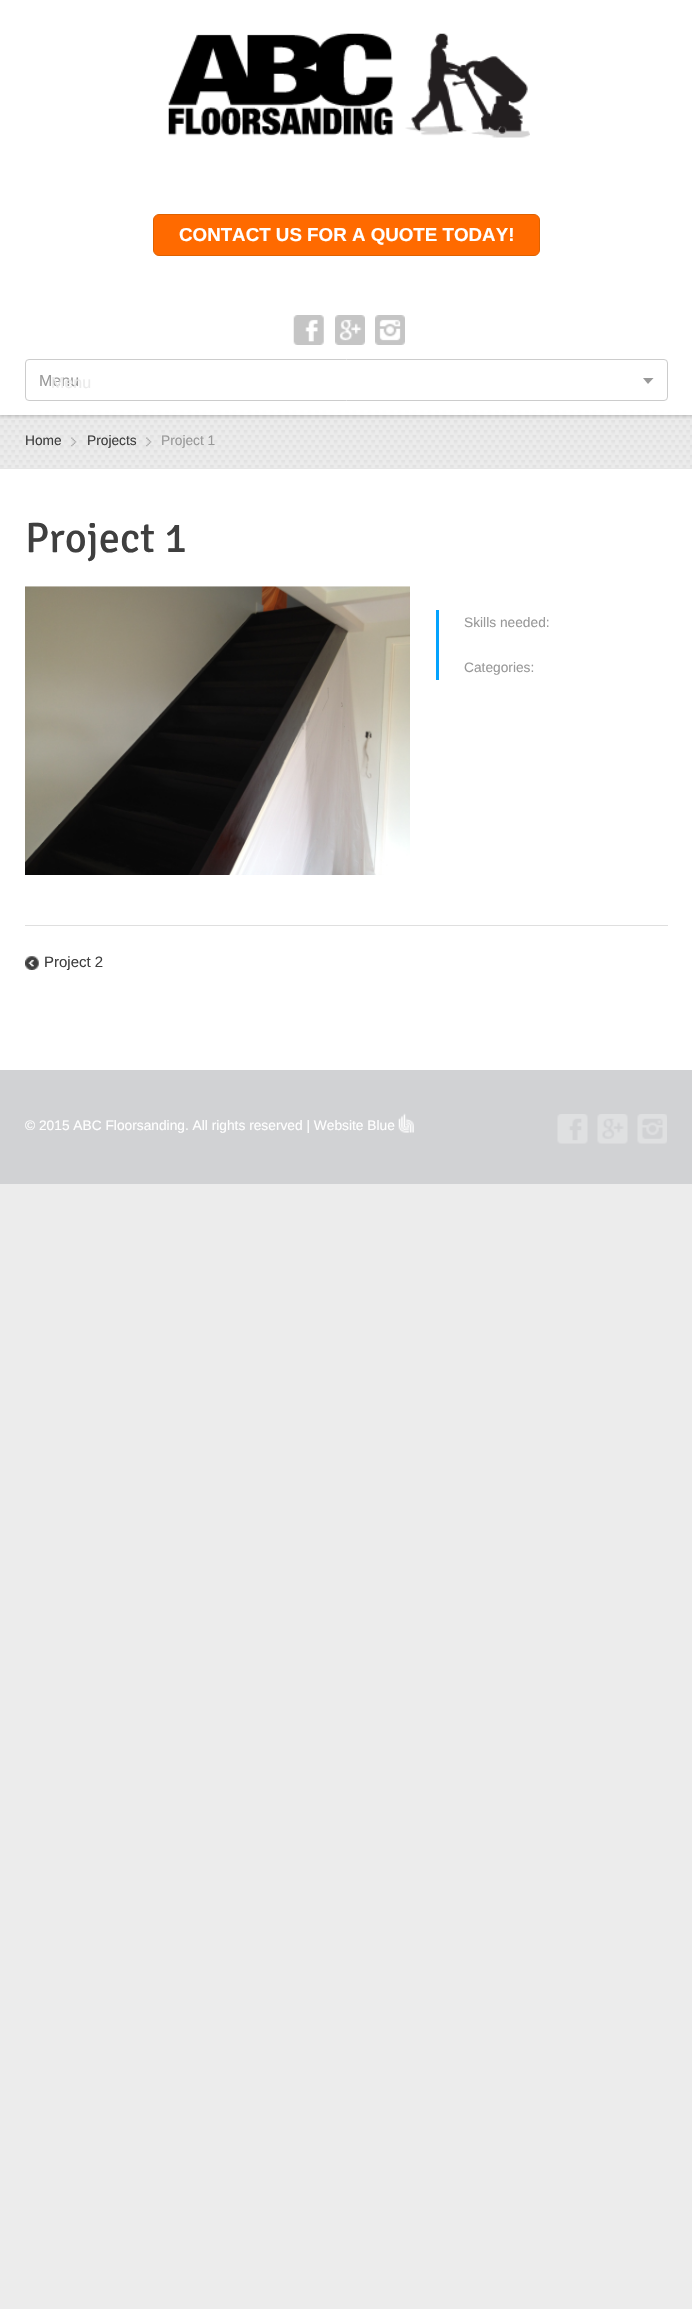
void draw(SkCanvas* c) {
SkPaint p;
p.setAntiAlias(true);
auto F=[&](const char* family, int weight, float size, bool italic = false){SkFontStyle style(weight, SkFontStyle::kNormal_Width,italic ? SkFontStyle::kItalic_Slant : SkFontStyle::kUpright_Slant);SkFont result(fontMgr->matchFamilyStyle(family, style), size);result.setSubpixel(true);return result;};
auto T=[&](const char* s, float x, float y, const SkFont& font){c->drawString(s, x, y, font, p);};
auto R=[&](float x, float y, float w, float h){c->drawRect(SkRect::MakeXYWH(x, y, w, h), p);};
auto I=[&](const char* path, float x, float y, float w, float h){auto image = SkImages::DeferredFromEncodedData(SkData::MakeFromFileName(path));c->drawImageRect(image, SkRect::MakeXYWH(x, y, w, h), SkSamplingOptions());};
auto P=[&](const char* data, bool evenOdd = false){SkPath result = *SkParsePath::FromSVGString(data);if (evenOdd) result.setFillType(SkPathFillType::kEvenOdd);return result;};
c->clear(0xffececec);
p.setColor(0xffffffff);
R(0,0,692,1070);
p.setColor(0xffececec);
R(0,415,692,53);
I("5.png",0,415,692,53);
c->save();
c->clipRect(SkRect::MakeXYWH(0,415,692,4));
p.setColor(0x4d000000);
p.setMaskFilter(SkMaskFilter::MakeBlur(kNormal_SkBlurStyle, 2.5));
c->drawRect(SkRect::MakeXYWH(0,0,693,415),p);
p.setMaskFilter(nullptr);
c->restore();
I("1.png",168,33,362,105);
p.setColor(0xffff6a00);
c->drawRoundRect(SkRect::MakeXYWH(153.5,214.5,386,41),5.5,5.5,p);
p.setStroke(true);
p.setStrokeWidth(1);
p.setColor(0xffde6200);
c->drawRoundRect(SkRect::MakeXYWH(153.5,214.5,386,41),5.5,5.5,p);
auto f1 = F("Liberation Sans",700,18.75);
p.setStroke(false);
p.setColor(0xffffffff);
T("CONTACT US FOR A QUOTE TODAY!",179,241,f1);
I("2.png",293,315,31,30);
I("3.png",335,315,30,30);
I("4.png",375,315,30,30);
p.setStroke(true);
p.setColor(0xffcccccc);
c->drawRoundRect(SkRect::MakeXYWH(25.5,359.5,642,41),3.5,3.5,p);
c->save();
c->clipRect(SkRect::MakeXYWH(643,378,23,6));
p.setStroke(false);
p.setColor(0xff999999);
c->drawPath(P("M642.5 377.5l5.5 6.5l6-6.5z",true),p);
c->restore();
auto f2 = F("Liberation Sans",400,16);
T("Menu",39,386,f2);
p.setColor(0xffebebeb);
T("Menu",51,388,f2);
p.setColor(0xffe6e6e6);
R(0,468,692,1);
auto f3 = F("Liberation Sans",400,13.75);
p.setColor(0xff3f3f3f);
T("Home",25,445,f3);
I("6.png",71,437,6,10);
T("Projects",87,445,f3);
I("6.png",146,437,6,10);
p.setColor(0xff999999);
T("Project 1",161,445,f3);
auto f4 = F("Signika",400,42.5);
p.setColor(0xff3f3f3f);
T("Project 1",25,552,f4);
p.setColor(0xffdfdfdf);
R(25,925,643,1);
I("7.png",25,586,385,289);
p.setColor(0xff04a3fe);
R(436,610,3,70);
p.setColor(0xff999999);
T("Skills needed:",464,627,f3);
T("Categories:",464,672,f3);
I("8.png",25,956,14,14);
auto f5 = F("Liberation Sans",400,15);
p.setColor(0xff3f3f3f);
T("Project 2",44,967,f5);
p.setColor(0xffd1d2d4);
R(0,1070,692,114);
p.setColor(0xffffffff);
T("© 2015 ABC Floorsanding. All rights reserved | Website Blue",25,1130,f3);
I("9.png",398,1113,16,20);
I("10.png",557,1114,31,30);
I("11.png",597,1114,31,30);
I("12.png",637,1114,30,30);
}
